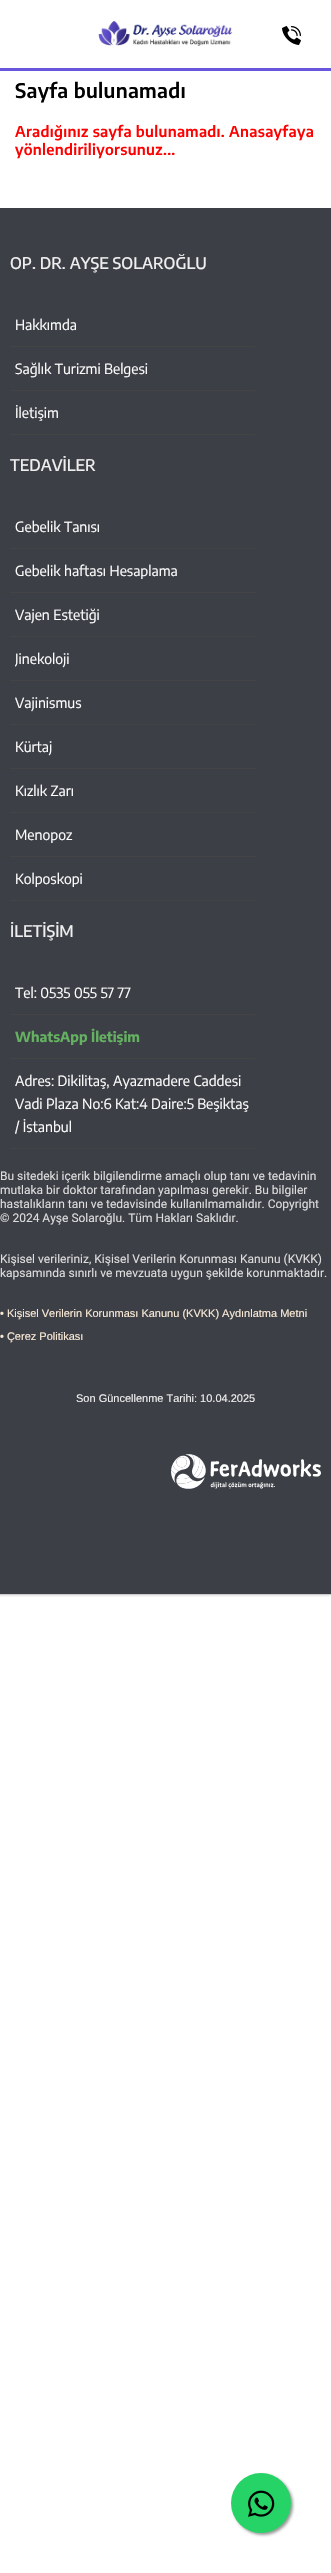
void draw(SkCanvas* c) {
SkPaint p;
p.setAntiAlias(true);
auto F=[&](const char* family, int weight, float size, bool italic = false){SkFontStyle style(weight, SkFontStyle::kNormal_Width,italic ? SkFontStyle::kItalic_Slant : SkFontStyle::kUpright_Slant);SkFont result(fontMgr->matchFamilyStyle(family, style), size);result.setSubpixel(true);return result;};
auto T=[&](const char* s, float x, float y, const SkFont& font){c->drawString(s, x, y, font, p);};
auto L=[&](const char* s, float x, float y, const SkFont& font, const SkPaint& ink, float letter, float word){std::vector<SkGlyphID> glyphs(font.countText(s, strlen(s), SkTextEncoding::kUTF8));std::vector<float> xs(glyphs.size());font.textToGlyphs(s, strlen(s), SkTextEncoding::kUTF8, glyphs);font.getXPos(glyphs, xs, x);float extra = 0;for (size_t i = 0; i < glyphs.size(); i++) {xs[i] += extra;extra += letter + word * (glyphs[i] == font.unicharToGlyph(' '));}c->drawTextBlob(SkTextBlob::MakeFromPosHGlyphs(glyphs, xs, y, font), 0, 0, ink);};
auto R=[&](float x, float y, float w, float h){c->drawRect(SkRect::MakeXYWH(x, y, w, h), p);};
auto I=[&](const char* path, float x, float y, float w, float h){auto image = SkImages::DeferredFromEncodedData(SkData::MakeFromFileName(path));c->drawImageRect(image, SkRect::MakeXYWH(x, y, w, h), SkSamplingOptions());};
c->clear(0xffffffff);
c->save();
c->clipRect(SkRect::MakeXYWH(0,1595,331,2));
p.setColor(0x1c000000);
p.setMaskFilter(SkMaskFilter::MakeBlur(kNormal_SkBlurStyle, 1));
c->drawRect(SkRect::MakeXYWH(-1,1,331,1595),p);
p.setMaskFilter(nullptr);
c->restore();
p.setColor(0xffcccccc);
R(0,1594,331,1);
I("1.png",98,21,135,25);
I("2.png",282,26,19,19);
p.setColor(0xff6857dd);
R(0,68,331,3);
auto f1 = F("Encode Sans Condensed",600,20);
p.setColor(0xff000000);
L("Sayfa bulunamadı",15,98,f1,p,.3,0);
auto f2 = F("Encode Sans Condensed",600,15);
p.setColor(0xffff0000);
L("Aradığınız sayfa bulunamadı. Anasayfaya",15,137,f2,p,.3,0);
L("yönlendiriliyorsunuz...",15,155,f2,p,.3,0);
p.setColor(0xff3d3f46);
R(0,208,331,1386);
auto f3 = F("Encode Sans Condensed",500,16);
p.setColor(0xffefefef);
T("OP. DR. AYŞE SOLAROĞLU",10,269,f3);
p.setColor(0xff444444);
R(10,346,245,1);
auto f4 = F("Encode Sans Condensed",400,14);
p.setColor(0xffffffff);
T("Hakkımda",15,330,f4);
p.setColor(0xff444444);
R(10,390,245,1);
p.setColor(0xffffffff);
T("Sağlık Turizmi Belgesi",15,374,f4);
p.setColor(0xff444444);
R(10,434,245,1);
p.setColor(0xffffffff);
T("İletişim",15,418,f4);
p.setColor(0xffefefef);
T("TEDAVİLER",10,471,f3);
p.setColor(0xff444444);
R(10,548,245,1);
p.setColor(0xffffffff);
T("Gebelik Tanısı",15,532,f4);
p.setColor(0xff444444);
R(10,592,245,1);
p.setColor(0xffffffff);
T("Gebelik haftası Hesaplama",15,576,f4);
p.setColor(0xff444444);
R(10,636,245,1);
p.setColor(0xffffffff);
T("Vajen Estetiği",15,620,f4);
p.setColor(0xff444444);
R(10,680,245,1);
p.setColor(0xffffffff);
T("Jinekoloji",15,664,f4);
p.setColor(0xff444444);
R(10,724,245,1);
p.setColor(0xffffffff);
T("Vajinismus",15,708,f4);
p.setColor(0xff444444);
R(10,768,245,1);
p.setColor(0xffffffff);
T("Kürtaj",15,752,f4);
p.setColor(0xff444444);
R(10,812,245,1);
p.setColor(0xffffffff);
T("Kızlık Zarı",15,796,f4);
p.setColor(0xff444444);
R(10,856,245,1);
p.setColor(0xffffffff);
T("Menopoz",15,840,f4);
p.setColor(0xff444444);
R(10,900,245,1);
p.setColor(0xffffffff);
T("Kolposkopi",15,884,f4);
p.setColor(0xffefefef);
T("İLETİŞİM",10,937,f3);
p.setColor(0xff444444);
R(10,1014,245,1);
p.setColor(0xffffffff);
T("Tel: 0535 055 57 77",15,998,f4);
p.setColor(0xff444444);
R(10,1058,245,1);
auto f5 = F("Encode Sans Condensed",700,14);
p.setColor(0xff64b161);
T("WhatsApp İletişim",15,1042,f5);
p.setColor(0xff444444);
R(10,1148,245,1);
p.setColor(0xffffffff);
T("Adres: Dikilitaş, Ayazmadere Caddesi",15,1086,f4);
T("Vadi Plaza No:6 Kat:4 Daire:5 Beşiktaş",15,1109,f4);
T("/ İstanbul",15,1132,f4);
auto f6 = F("Roboto",400,12);
p.setColor(0xffdddddd);
T("Bu sitedeki içerik bilgilendirme amaçlı olup tanı ve tedavinin",0,1180,f6);
T("mutlaka bir doktor tarafından yapılması gerekir. Bu bilgiler",0,1194,f6);
T("hastalıkların tanı ve tedavisinde kullanılmamalıdır. Copyright",0,1208,f6);
T("© 2024 Ayşe Solaroğlu. Tüm Hakları Saklıdır.",0,1222,f6);
T("Kişisel verileriniz, Kişisel Verilerin Korunması Kanunu (KVKK)",0,1263,f6);
T("kapsamında sınırlı ve mevzuata uygun şekilde korunmaktadır.",0,1277,f6);
auto f7 = F("Liberation Sans",400,11);
p.setColor(0xfffaebd7);
T("• Kişisel Verilerin Korunması Kanunu (KVKK) Aydınlatma Metni",0,1317,f7);
T("• Çerez Politikası",0,1340,f7);
p.setColor(0xffefefef);
T("Son Güncellenme Tarihi: 10.04.2025",76,1402,f7);
I("3.png",171,1454,150,35);
p.setColor(0xff999999);
p.setMaskFilter(SkMaskFilter::MakeBlur(kNormal_SkBlurStyle, 1.5));
c->drawRoundRect(SkRect::MakeXYWH(233,2475,60,60),30,30,p);
p.setMaskFilter(nullptr);
p.setColor(0xff25d366);
c->drawCircle(261,2503,30,p);
I("4.png",248,2490,27,27);
}
